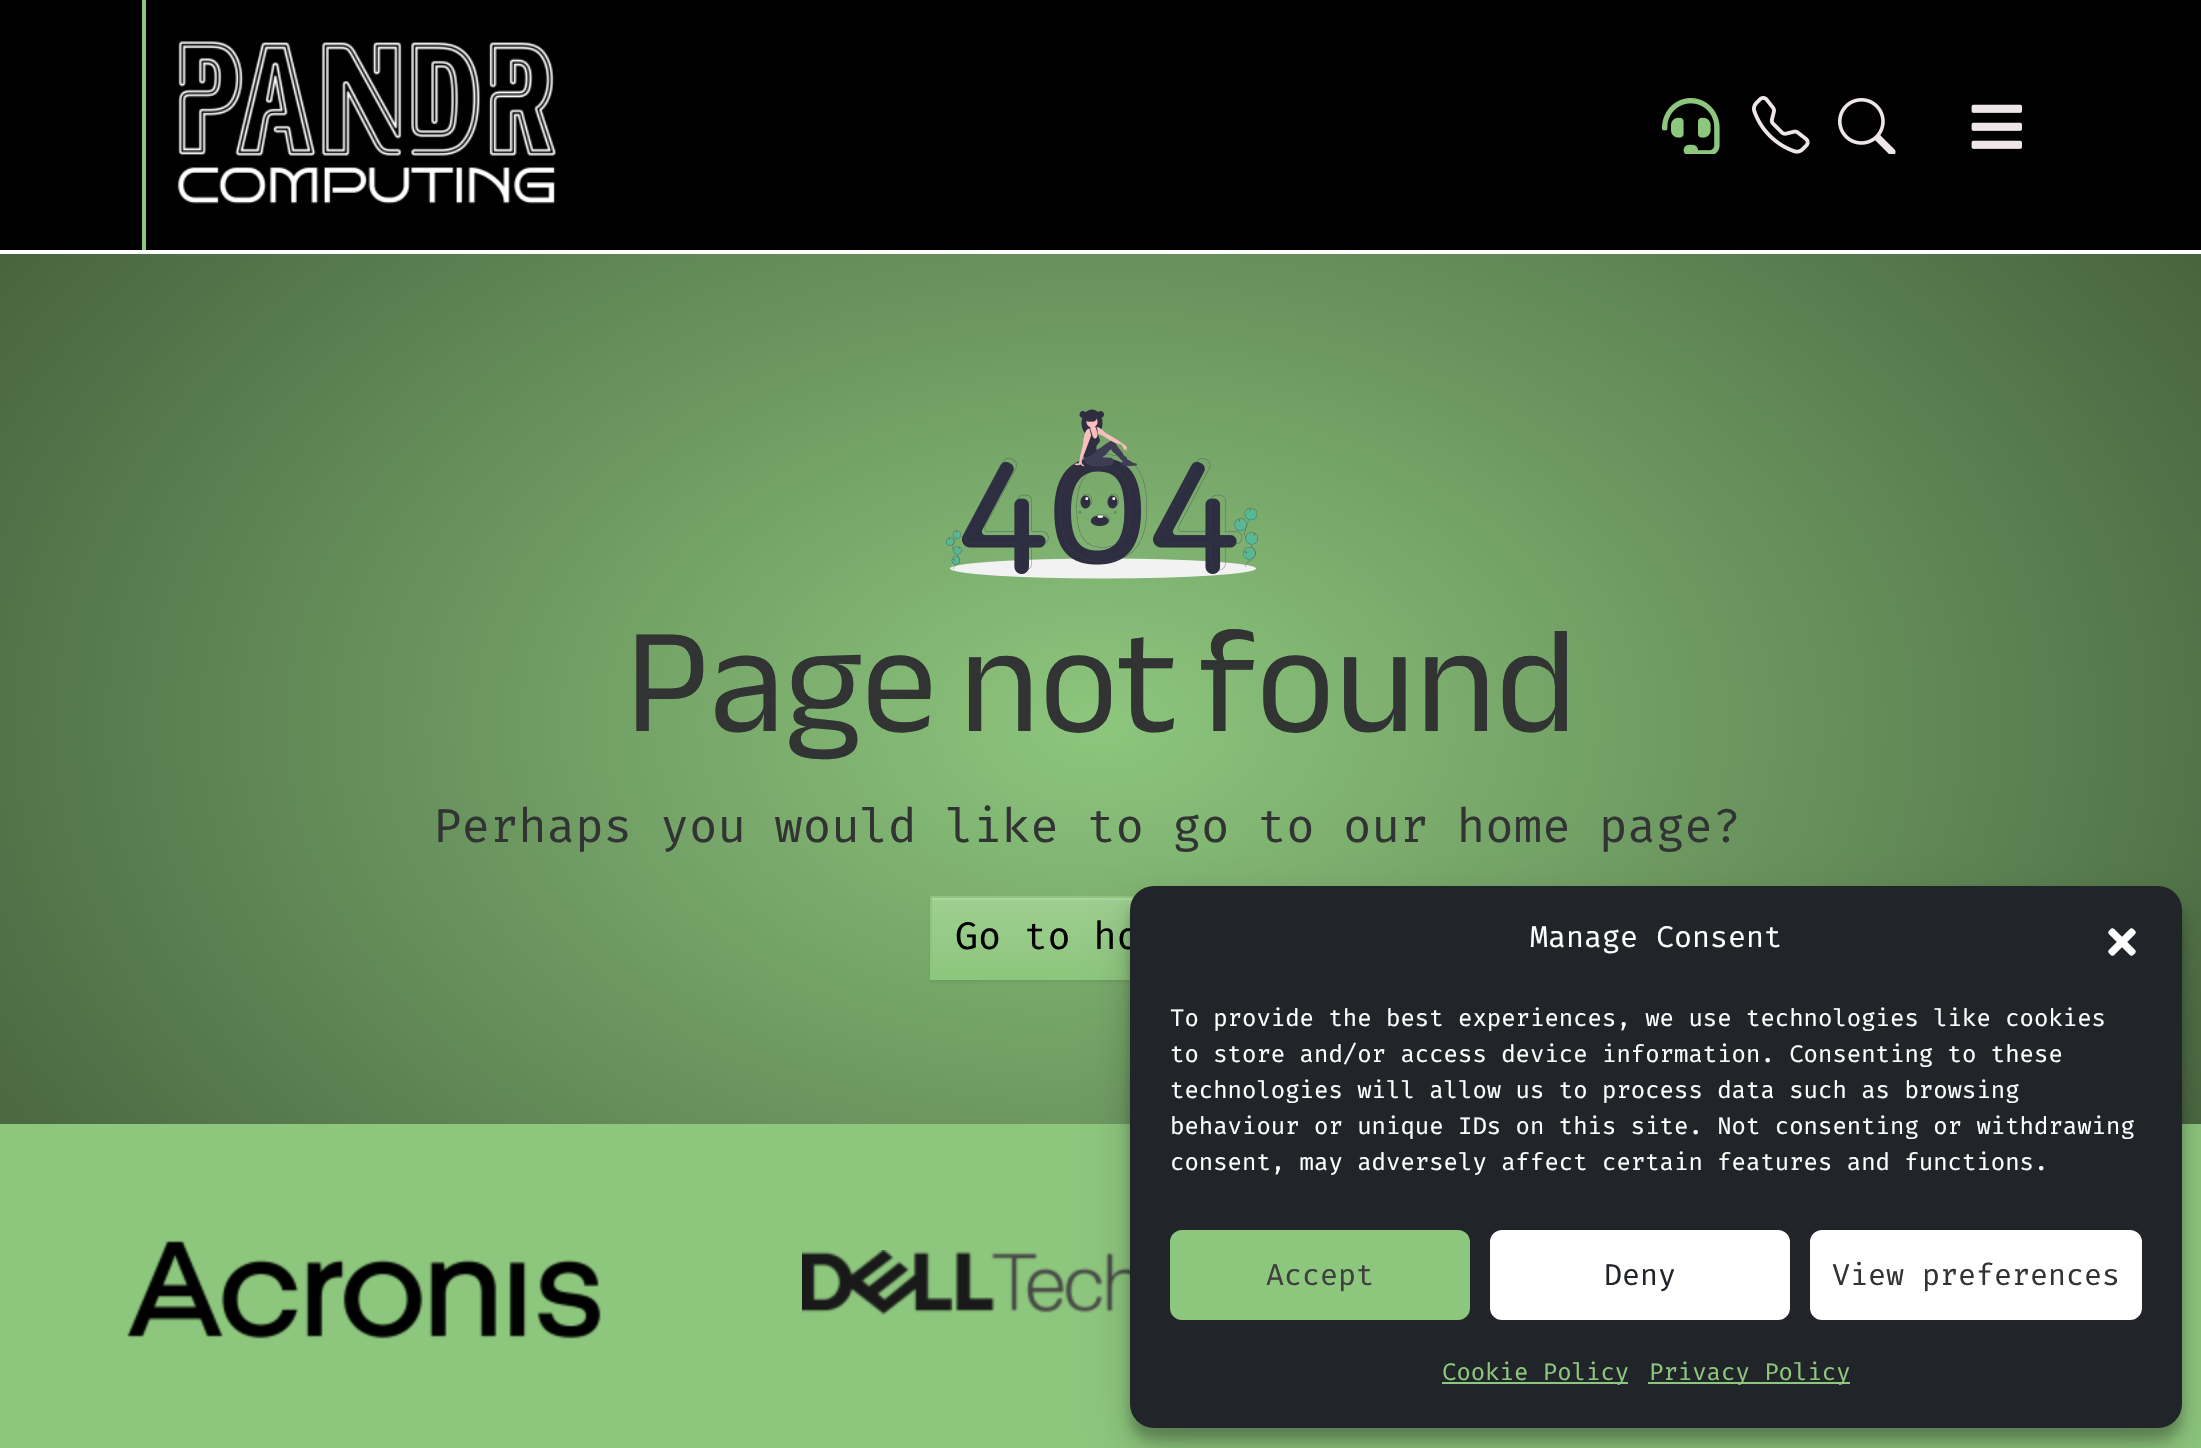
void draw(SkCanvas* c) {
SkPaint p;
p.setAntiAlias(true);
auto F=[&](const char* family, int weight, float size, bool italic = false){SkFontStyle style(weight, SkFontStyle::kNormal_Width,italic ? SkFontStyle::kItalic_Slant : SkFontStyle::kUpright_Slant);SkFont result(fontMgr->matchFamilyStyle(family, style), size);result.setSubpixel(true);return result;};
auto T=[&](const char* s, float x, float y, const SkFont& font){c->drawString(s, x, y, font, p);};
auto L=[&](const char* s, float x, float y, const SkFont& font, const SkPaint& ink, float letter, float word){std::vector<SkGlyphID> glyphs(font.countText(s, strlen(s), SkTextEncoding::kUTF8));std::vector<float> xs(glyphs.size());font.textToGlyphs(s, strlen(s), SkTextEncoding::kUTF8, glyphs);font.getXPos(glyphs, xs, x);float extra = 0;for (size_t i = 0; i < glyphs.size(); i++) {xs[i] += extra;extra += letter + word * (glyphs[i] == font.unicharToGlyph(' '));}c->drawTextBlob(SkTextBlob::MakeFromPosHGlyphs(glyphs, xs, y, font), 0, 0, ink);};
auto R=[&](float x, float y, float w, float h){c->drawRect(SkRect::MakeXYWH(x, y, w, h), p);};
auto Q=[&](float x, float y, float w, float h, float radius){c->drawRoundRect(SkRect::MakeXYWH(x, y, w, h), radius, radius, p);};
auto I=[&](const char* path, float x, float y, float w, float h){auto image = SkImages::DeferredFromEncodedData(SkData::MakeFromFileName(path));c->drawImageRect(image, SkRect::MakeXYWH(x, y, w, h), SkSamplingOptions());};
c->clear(0xffffffff);
{
const SkColor colors[] = {0xff8dc67d,0xff000000};
const float stops[] = {0,1};
SkMatrix m = SkMatrix::Translate(1101,724).preScale(2647,1741);
p.setShader(SkGradientShader::MakeRadial({0, 0}, 1, colors, stops, 2, SkTileMode::kClamp, 0, &m));
p.setAlpha(255);
}
R(0,254,2201,870);
p.setShader(nullptr);
p.setColor(0xff000000);
R(0,0,2201,250);
p.setColor(0xff8dc67d);
R(142,0,4,250);
I("1.png",177,41,380,163);
I("2.png",1662,98,58,56);
I("3.png",1752,96,58,58);
I("4.png",1838,98,58,56);
I("5.png",1971,104,51,45);
I("6.png",946,409,312,170);
auto f1 = F("Anek Bangla",400,151);
p.setColor(0xff323434);
L("Page not found",625,731,f1,p,0,-5);
auto f2 = F("Fira Code",400,47.4);
T("Perhaps you would like to go to our home page?",433,842,f2);
p.setColor(0x12000000);
p.setMaskFilter(SkMaskFilter::MakeBlur(kNormal_SkBlurStyle, 1));
c->drawRect(SkRect::MakeXYWH(930,898,342,84),p);
p.setMaskFilter(nullptr);
{
const SkColor colors[] = {0xff9ecf91,0xff8dc67d};
const float stops[] = {0,1};
const SkPoint ends[] = {{1101,898}, {1101,978}};
p.setShader(SkGradientShader::MakeLinear(ends, colors, stops, 2, SkTileMode::kClamp));
p.setAlpha(255);
}
R(932,900,201,78);
p.setShader(nullptr);
p.setColor(0xffadd6a2);
R(932,898,202,2);
p.setStroke(true);
p.setStrokeWidth(2);
p.setColor(0xff8dc67d);
c->drawRect(SkRect::MakeXYWH(931,897,340,82),p);
auto f3 = F("Fira Code",400,38.5);
p.setStroke(false);
p.setColor(0xff000000);
T("Go to ho",955,949,f3);
p.setColor(0xff8dc67d);
R(0,1124,2201,324);
I("9.png",802,1250,328,65);
p.setColor(0x3b000000);
p.setMaskFilter(SkMaskFilter::MakeBlur(kNormal_SkBlurStyle, 6));
c->drawRoundRect(SkRect::MakeXYWH(1130,898,1052,542),24,24,p);
p.setMaskFilter(nullptr);
p.setColor(0x30000000);
p.setMaskFilter(SkMaskFilter::MakeBlur(kNormal_SkBlurStyle, 20));
c->drawRoundRect(SkRect::MakeXYWH(1130,906,1052,542),24,24,p);
p.setMaskFilter(nullptr);
p.setColor(0xff212529);
Q(1130,886,1052,542,24);
auto f4 = F("Fira Code",400,30);
p.setColor(0xffffffff);
T("Manage Consent",1530,947,f4);
I("7.png",2108,928,28,28);
auto f5 = F("Fira Code",400,24);
T("To provide the best experiences, we use technologies like cookies",1170,1026,f5);
T("to store and/or access device information. Consenting to these",1170,1062,f5);
T("technologies will allow us to process data such as browsing",1170,1098,f5);
T("behaviour or unique IDs on this site. Not consenting or withdrawing",1170,1134,f5);
T("consent, may adversely affect certain features and functions.",1170,1170,f5);
p.setColor(0xff8dc67d);
c->drawRoundRect(SkRect::MakeXYWH(1171,1231,298,88),11,11,p);
p.setStroke(true);
c->drawRoundRect(SkRect::MakeXYWH(1171,1231,298,88),11,11,p);
p.setStroke(false);
p.setColor(0xff3f3f3f);
T("Accept",1266,1285,f4);
p.setColor(0xffffffff);
c->drawRoundRect(SkRect::MakeXYWH(1491,1231,298,88),11,11,p);
p.setStroke(true);
c->drawRoundRect(SkRect::MakeXYWH(1491,1231,298,88),11,11,p);
p.setStroke(false);
p.setColor(0xff212529);
T("Deny",1604,1285,f4);
p.setColor(0xffffffff);
c->drawRoundRect(SkRect::MakeXYWH(1811,1231,330,88),11,11,p);
p.setStroke(true);
c->drawRoundRect(SkRect::MakeXYWH(1811,1231,330,88),11,11,p);
p.setStroke(false);
p.setColor(0xff323434);
T("View preferences",1832,1285,f4);
p.setColor(0xff8dc67d);
R(1442,1382,186,2);
T("Cookie Policy",1442,1380,f5);
R(1648,1382,202,2);
T("Privacy Policy",1649,1380,f5);
I("8.png",127,1240,474,99);
}
